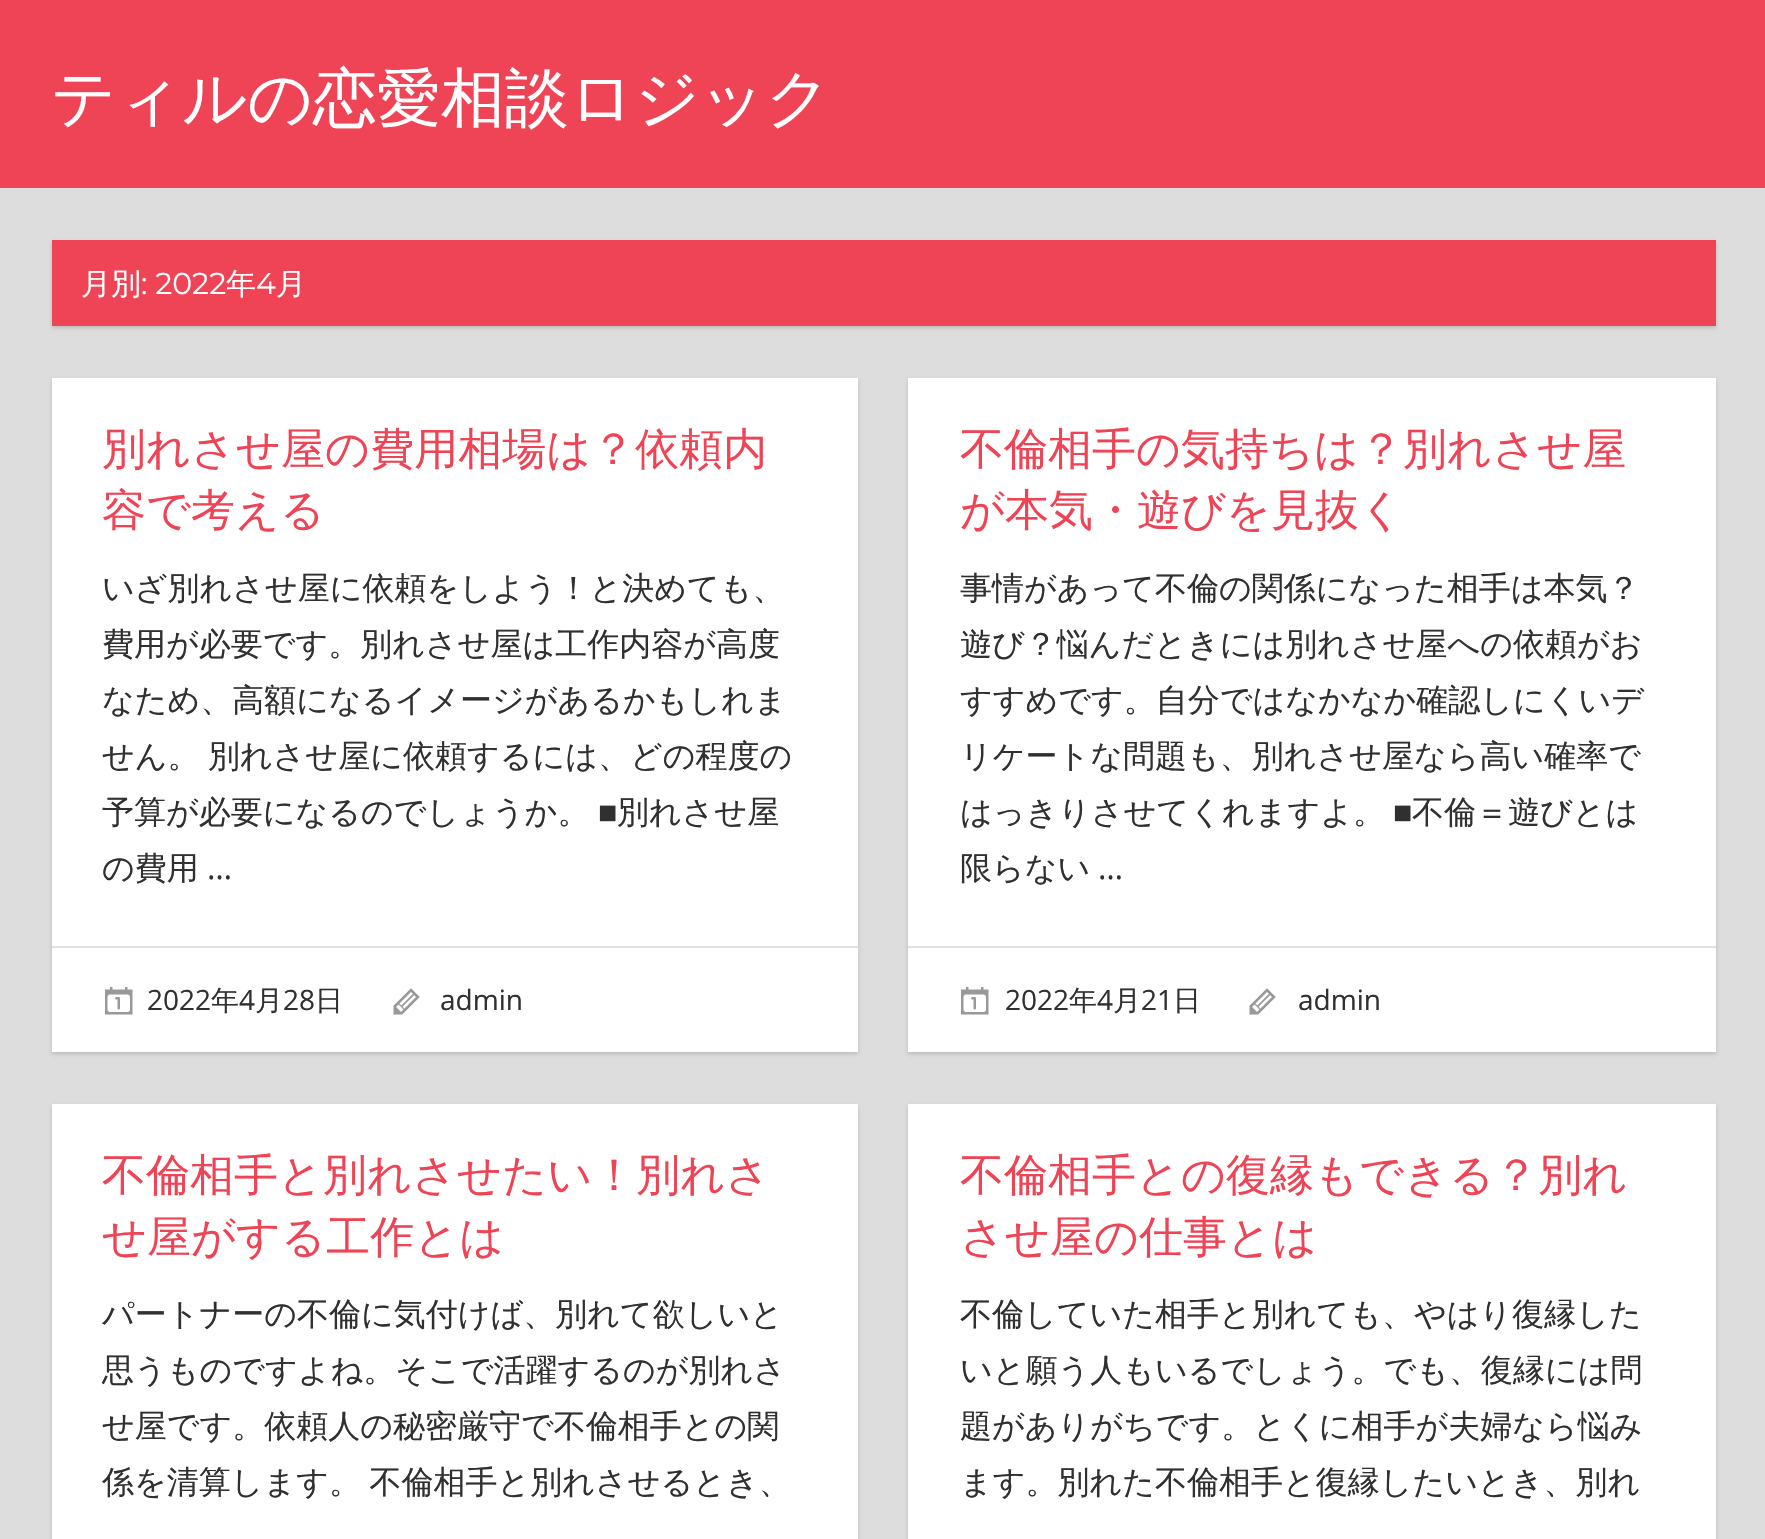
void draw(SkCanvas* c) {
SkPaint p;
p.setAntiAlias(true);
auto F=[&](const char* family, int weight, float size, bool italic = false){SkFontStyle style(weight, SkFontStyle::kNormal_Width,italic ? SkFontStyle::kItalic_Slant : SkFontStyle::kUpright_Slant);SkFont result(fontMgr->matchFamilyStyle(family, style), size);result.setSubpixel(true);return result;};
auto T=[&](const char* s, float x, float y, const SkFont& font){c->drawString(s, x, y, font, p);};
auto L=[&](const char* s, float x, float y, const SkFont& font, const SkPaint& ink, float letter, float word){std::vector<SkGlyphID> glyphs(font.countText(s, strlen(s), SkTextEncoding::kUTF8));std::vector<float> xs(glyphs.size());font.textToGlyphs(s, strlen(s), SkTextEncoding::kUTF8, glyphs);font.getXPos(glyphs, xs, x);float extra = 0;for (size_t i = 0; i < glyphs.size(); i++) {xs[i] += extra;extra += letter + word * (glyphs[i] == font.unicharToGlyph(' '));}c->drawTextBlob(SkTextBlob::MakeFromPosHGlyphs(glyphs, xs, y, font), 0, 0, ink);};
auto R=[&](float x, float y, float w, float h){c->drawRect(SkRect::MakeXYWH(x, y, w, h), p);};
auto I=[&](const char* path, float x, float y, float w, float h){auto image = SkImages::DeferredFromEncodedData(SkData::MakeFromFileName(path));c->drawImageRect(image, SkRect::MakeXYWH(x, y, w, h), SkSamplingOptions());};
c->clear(0xffdddddd);
p.setColor(0xffee4455);
R(0,0,1765,188);
auto f1 = F("WenQuanYi Zen Hei",500,64);
p.setColor(0xffffffff);
T("ティルの恋愛相談ロジック",51,120,f1);
p.setColor(0xffbbbbbb);
p.setMaskFilter(SkMaskFilter::MakeBlur(kNormal_SkBlurStyle, 2));
c->drawRect(SkRect::MakeXYWH(52,242,1664,86),p);
p.setMaskFilter(nullptr);
p.setColor(0xffee4455);
R(52,240,1664,86);
auto f2 = F("WenQuanYi Zen Hei",500,30);
p.setColor(0xffffffff);
T("月別",81,294,f2);
auto f3 = F("Montserrat",400,30);
T(": 2022",141,294,f3);
T("年",226,294,f2);
T("4",256,294,f3);
T("月",276,294,f2);
p.setColor(0xffbbbbbb);
p.setMaskFilter(SkMaskFilter::MakeBlur(kNormal_SkBlurStyle, 2));
c->drawRect(SkRect::MakeXYWH(52,380,806,674),p);
p.setMaskFilter(nullptr);
p.setColor(0xffffffff);
R(52,378,806,674);
auto f4 = F("WenQuanYi Zen Hei",500,44);
p.setColor(0xffee4455);
T("別れさせ屋の費用相場は？依頼内",102,464,f4);
T("容で考える",102,525,f4);
auto f5 = F("WenQuanYi Zen Hei",500,32);
p.setColor(0xff303030);
T("いざ別れさせ屋に依頼をしよう！と決めても、",102,599,f5);
T("費用が必要です。別れさせ屋は工作内容が高度",102,655,f5);
T("なため、高額になるイメージがあるかもしれま",102,711,f5);
L("せん。 別れさせ屋に依頼するには、どの程度の",102,767,f5,p,0,-1);
T("予算が必要になるのでしょうか。",102,823,f5);
auto f6 = F("Liberation Sans",400,32);
T("■",598,823,f6);
T("別れさせ屋",617,823,f5);
T("の費用",102,879,f5);
auto f7 = F("Open Sans",400,32);
T("…",207,879,f7);
p.setColor(0xffe0e0e0);
R(52,946,806,2);
I("1.png",105,987,28,28);
auto f8 = F("Open Sans",400,28);
p.setColor(0xff303030);
T("2022",147,1010,f8);
auto f9 = F("WenQuanYi Zen Hei",500,28);
T("年",211,1010,f9);
T("4",239,1010,f8);
T("月",255,1010,f9);
T("28",283,1010,f8);
T("日",315,1010,f9);
I("2.png",393,988,27,27);
T("admin",440,1010,f8);
p.setColor(0xffbbbbbb);
p.setMaskFilter(SkMaskFilter::MakeBlur(kNormal_SkBlurStyle, 2));
c->drawRect(SkRect::MakeXYWH(908,380,808,674),p);
p.setMaskFilter(nullptr);
p.setColor(0xffffffff);
R(908,378,808,674);
p.setColor(0xffee4455);
T("不倫相手の気持ちは？別れさせ屋",960,464,f4);
T("が本気・遊びを見抜く",960,525,f4);
p.setColor(0xff303030);
T("事情があって不倫の関係になった相手は本気？",960,599,f5);
T("遊び？悩んだときには別れさせ屋への依頼がお",960,655,f5);
T("すすめです。自分ではなかなか確認しにくいデ",960,711,f5);
T("リケートな問題も、別れさせ屋なら高い確率で",960,767,f5);
T("はっきりさせてくれますよ。",960,823,f5);
T("■",1393,823,f6);
T("不倫＝遊びとは",1412,823,f5);
T("限らない",960,879,f5);
T("…",1098,879,f7);
p.setColor(0xffe0e0e0);
R(908,946,808,2);
I("1.png",961,987,28,28);
p.setColor(0xff303030);
T("2022",1005,1010,f8);
T("年",1069,1010,f9);
T("4",1097,1010,f8);
T("月",1113,1010,f9);
T("21",1141,1010,f8);
T("日",1173,1010,f9);
I("2.png",1249,988,27,27);
T("admin",1298,1010,f8);
p.setColor(0xffbbbbbb);
p.setMaskFilter(SkMaskFilter::MakeBlur(kNormal_SkBlurStyle, 2));
c->drawRect(SkRect::MakeXYWH(52,1106,806,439),p);
p.setMaskFilter(nullptr);
p.setColor(0xffffffff);
R(52,1104,806,435);
p.setColor(0xffee4455);
T("不倫相手と別れさせたい！別れさ",102,1190,f4);
T("せ屋がする工作とは",102,1252,f4);
p.setColor(0xff303030);
T("パートナーの不倫に気付けば、別れて欲しいと",102,1325,f5);
T("思うものですよね。そこで活躍するのが別れさ",102,1381,f5);
T("せ屋です。依頼人の秘密厳守で不倫相手との関",102,1437,f5);
L("係を清算します。 不倫相手と別れさせるとき、",102,1493,f5,p,0,-1);
p.setColor(0xffbbbbbb);
p.setMaskFilter(SkMaskFilter::MakeBlur(kNormal_SkBlurStyle, 2));
c->drawRect(SkRect::MakeXYWH(908,1106,808,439),p);
p.setMaskFilter(nullptr);
p.setColor(0xffffffff);
R(908,1104,808,435);
p.setColor(0xffee4455);
T("不倫相手との復縁もできる？別れ",960,1190,f4);
T("させ屋の仕事とは",960,1252,f4);
p.setColor(0xff303030);
T("不倫していた相手と別れても、やはり復縁した",960,1325,f5);
T("いと願う人もいるでしょう。でも、復縁には問",960,1381,f5);
T("題がありがちです。とくに相手が夫婦なら悩み",960,1437,f5);
T("ます。別れた不倫相手と復縁したいとき、別れ",960,1493,f5);
}
